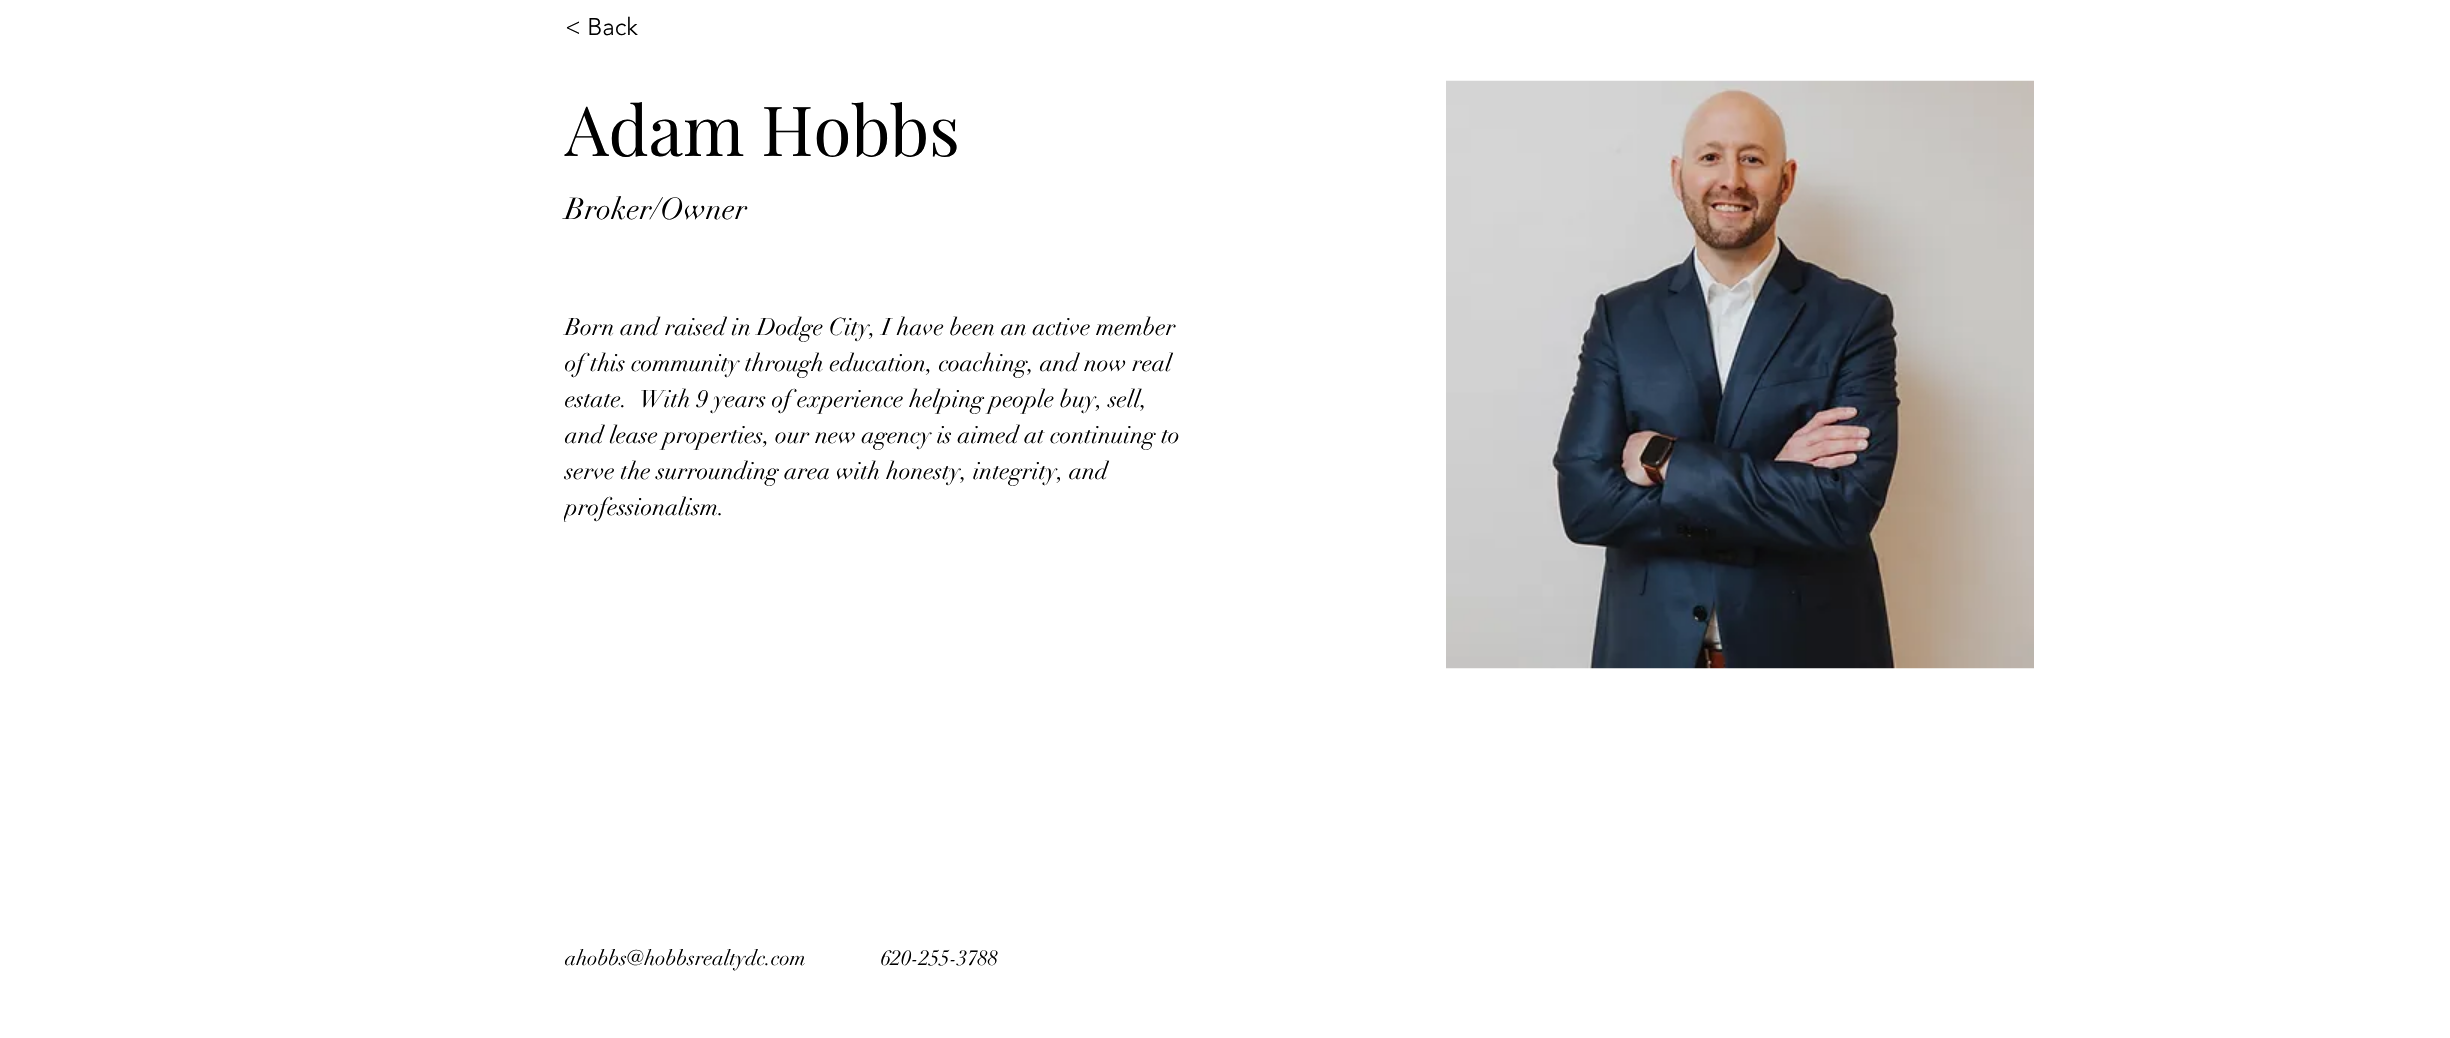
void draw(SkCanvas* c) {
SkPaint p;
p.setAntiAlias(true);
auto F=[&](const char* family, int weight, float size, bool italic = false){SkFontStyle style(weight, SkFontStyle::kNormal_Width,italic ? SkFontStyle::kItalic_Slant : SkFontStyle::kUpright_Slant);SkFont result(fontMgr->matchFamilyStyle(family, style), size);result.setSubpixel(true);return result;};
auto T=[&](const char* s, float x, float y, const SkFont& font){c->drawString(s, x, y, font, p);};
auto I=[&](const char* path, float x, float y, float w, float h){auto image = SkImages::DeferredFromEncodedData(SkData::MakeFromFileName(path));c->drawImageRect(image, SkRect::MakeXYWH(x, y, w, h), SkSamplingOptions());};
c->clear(0xffffffff);
auto f1 = F("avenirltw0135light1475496",300,24);
p.setColor(0xff000000);
T("< Back",565,35,f1);
auto f2 = F("Playfair Display",400,69);
T("Adam Hobbs",565,156,f2);
auto f3 = F("didot",400,30);
T("Broker/Owner",565,219,f3);
auto f4 = F("didot",400,24);
T("Born and raised in Dodge City, I have been an active member",565,335,f4);
T("of this community through education, coaching, and now real",565,371,f4);
T("estate.  With 9 years of experience helping people buy, sell,",565,407,f4);
T("and lease properties, our new agency is aimed at continuing to",565,443,f4);
c->save();
c->clipRect(SkRect::MakeXYWH(564,309,621,216));
T("serve the surrounding area with honesty, integrity, and",565,479,f4);
T("professionalism.",565,515,f4);
c->restore();
auto f5 = F("didot",400,21);
T("ahobbs@hobbsrealtydc.com",565,965,f5);
T("620-255-3788",881,965,f5);
I("1.png",1446,80,588,589);
}
